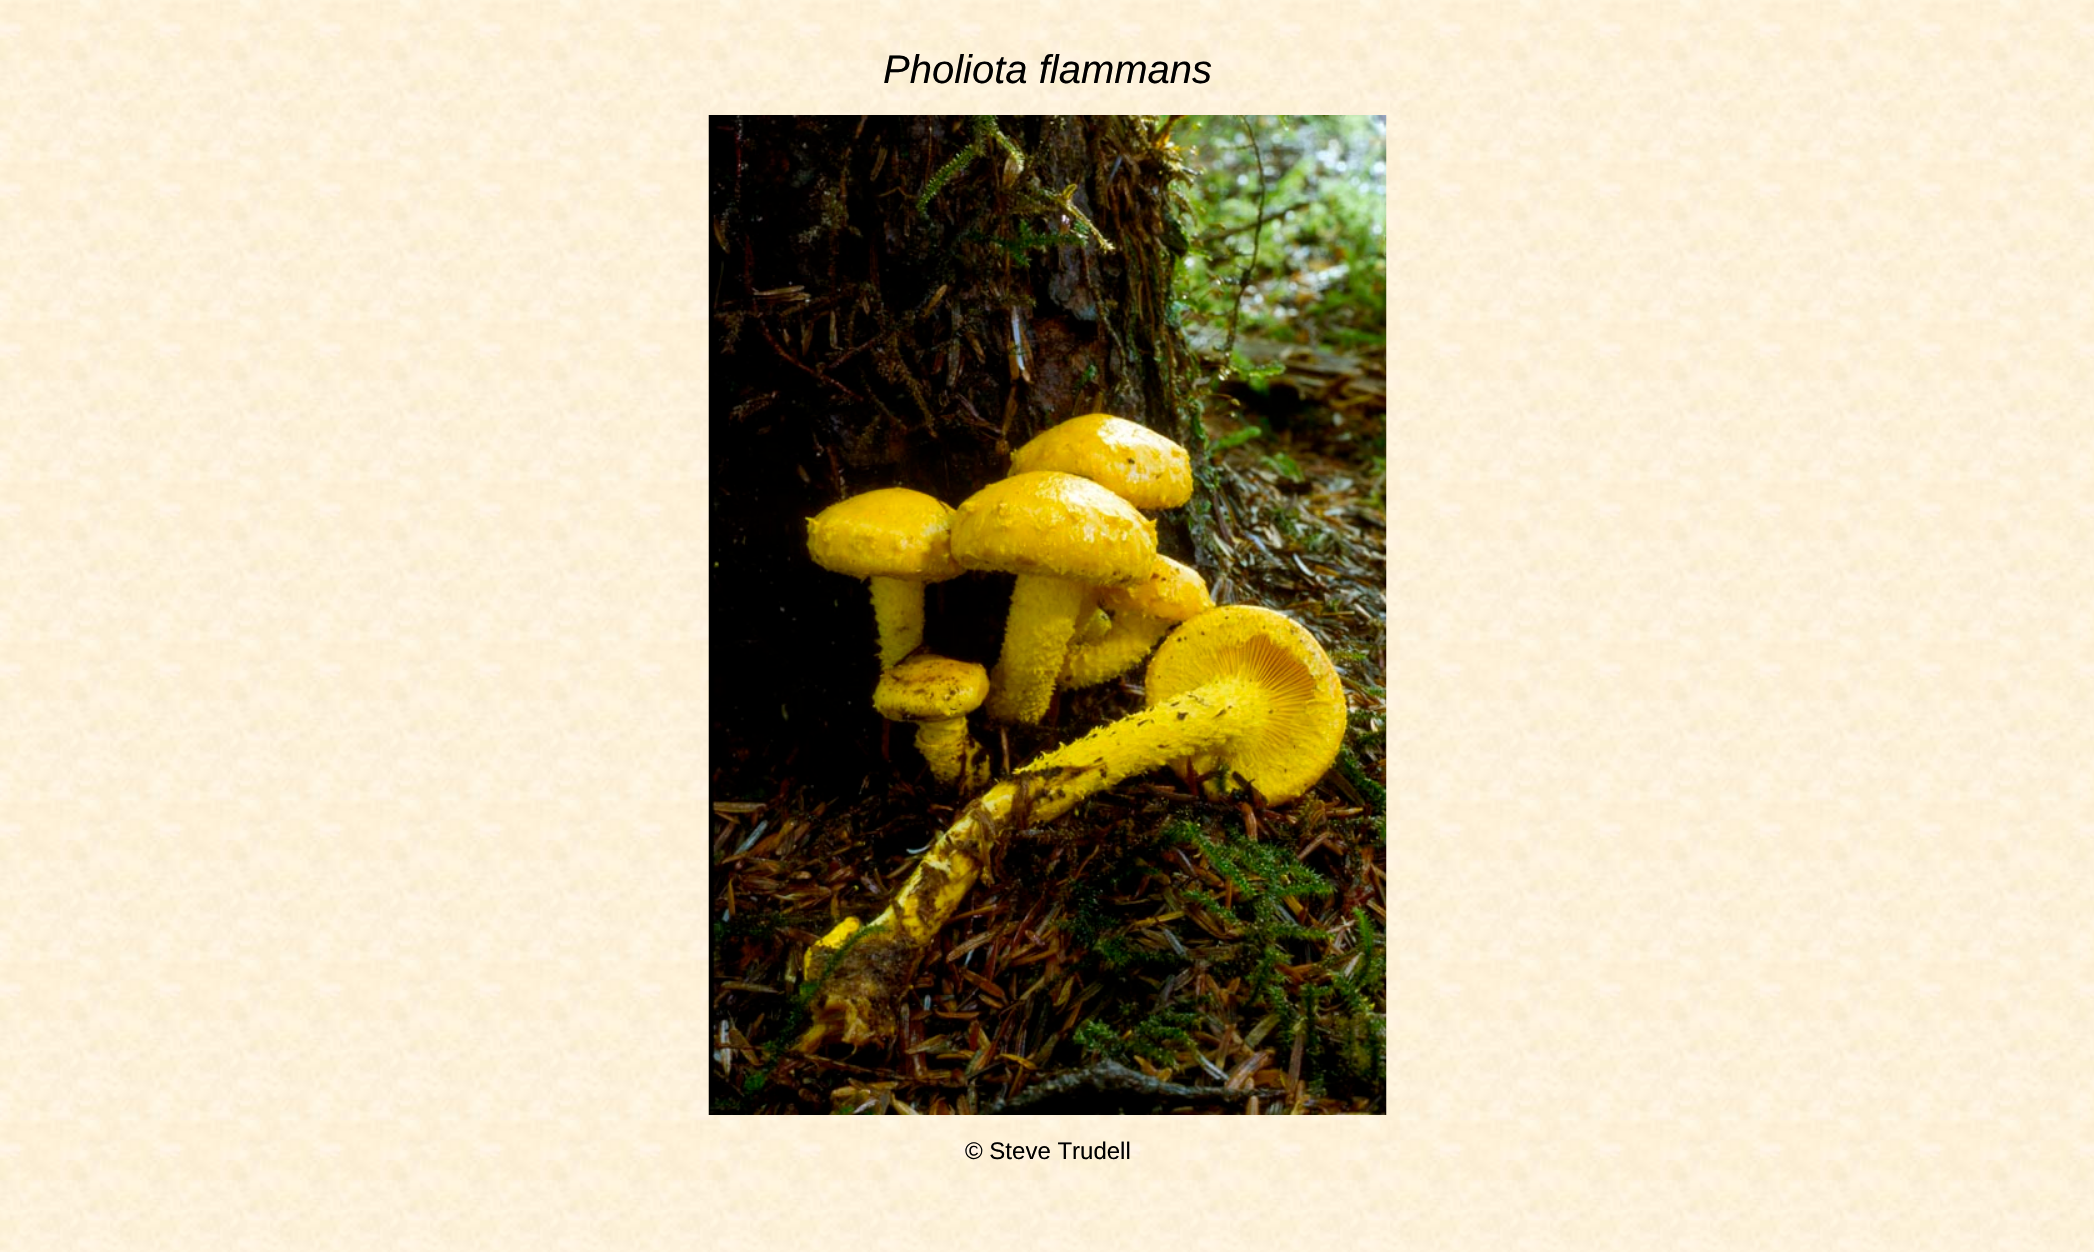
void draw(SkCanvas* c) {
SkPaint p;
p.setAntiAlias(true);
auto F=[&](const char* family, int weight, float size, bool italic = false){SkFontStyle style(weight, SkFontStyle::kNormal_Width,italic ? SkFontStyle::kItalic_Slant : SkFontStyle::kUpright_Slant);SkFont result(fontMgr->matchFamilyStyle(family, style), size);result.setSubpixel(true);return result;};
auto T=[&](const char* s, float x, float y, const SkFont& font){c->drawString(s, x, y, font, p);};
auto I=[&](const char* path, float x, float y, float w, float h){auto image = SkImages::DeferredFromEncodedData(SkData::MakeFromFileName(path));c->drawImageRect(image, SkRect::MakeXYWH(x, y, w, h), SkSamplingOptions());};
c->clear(0xffffffff);
I("1.png",0,0,2094,1252);
auto f1 = F("Liberation Sans",400,40,true);
p.setColor(0xff000000);
T("Pholiota flammans",883,83,f1);
I("2.png",708,115,679,1000);
auto f2 = F("Liberation Sans",400,24);
T("© Steve Trudell",965,1159,f2);
}
